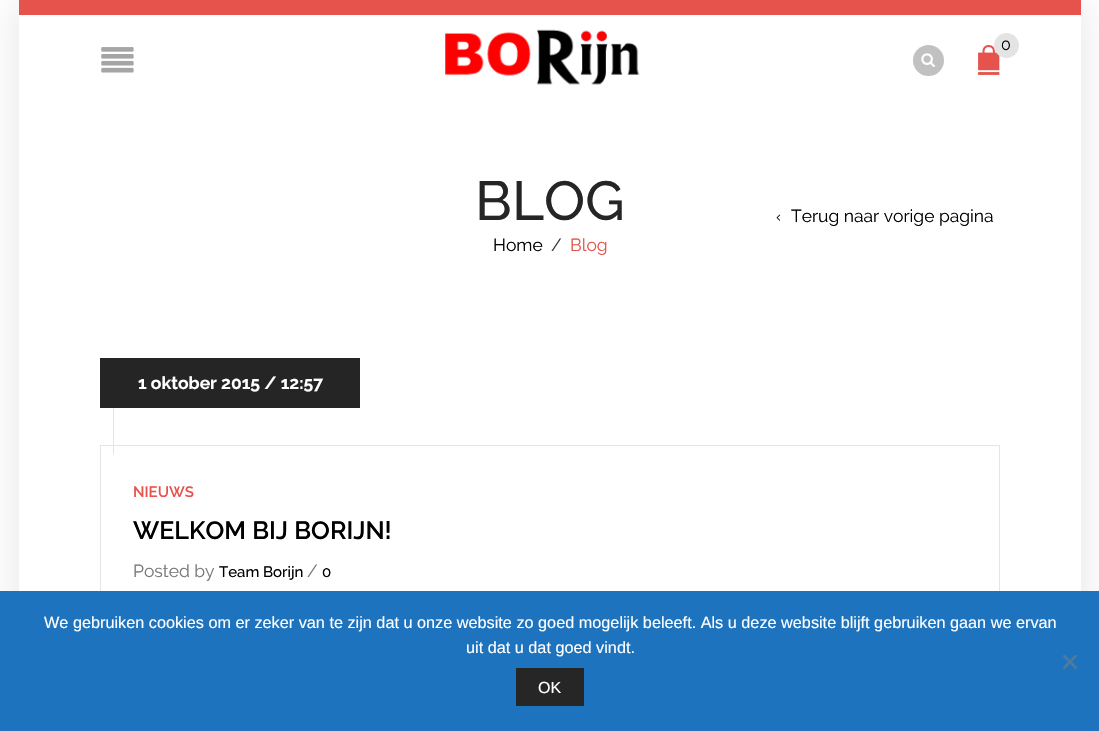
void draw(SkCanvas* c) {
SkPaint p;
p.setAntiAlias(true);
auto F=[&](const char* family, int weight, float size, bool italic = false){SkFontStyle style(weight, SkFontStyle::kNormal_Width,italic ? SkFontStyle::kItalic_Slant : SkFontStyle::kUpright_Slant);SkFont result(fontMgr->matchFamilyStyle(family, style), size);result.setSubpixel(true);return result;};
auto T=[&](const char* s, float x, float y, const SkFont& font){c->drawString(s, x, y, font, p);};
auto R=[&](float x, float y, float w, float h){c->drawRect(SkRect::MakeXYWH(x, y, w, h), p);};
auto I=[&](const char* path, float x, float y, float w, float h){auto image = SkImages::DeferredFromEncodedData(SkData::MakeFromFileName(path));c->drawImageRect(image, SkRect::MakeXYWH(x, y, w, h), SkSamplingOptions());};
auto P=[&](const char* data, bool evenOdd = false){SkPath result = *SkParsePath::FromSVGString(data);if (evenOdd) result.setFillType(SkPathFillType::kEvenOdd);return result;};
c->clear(0xffffffff);
p.setColor(0x1a000000);
p.setMaskFilter(SkMaskFilter::MakeBlur(kNormal_SkBlurStyle, 19));
c->drawRect(SkRect::MakeXYWH(19,0,1062,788),p);
p.setMaskFilter(nullptr);
p.setColor(0xffffffff);
R(19,15,1062,576);
p.setColor(0xffe5534c);
R(19,0,1062,15);
I("1.png",445,29,195,56);
p.setColor(0xffc1c1c1);
c->drawCircle(928.5,60.5,15.5,p);
I("2.png",921,53,14,14);
I("3.png",978,45,22,30);
p.setColor(0xffe4e4e4);
c->drawCircle(1006.5,45.5,12.5,p);
auto f1 = F("Raleway",400,16);
p.setColor(0xff000000);
T("0",1001,50,f1);
I("4.png",101,47,33,26);
auto f2 = F("Raleway",500,55);
p.setColor(0xff252525);
T("BLOG",475,220,f2);
I("5.png",776,214,5,7);
auto f3 = F("Raleway",400,17.5);
p.setColor(0xff000000);
T("Terug naar vorige pagina",791,222,f3);
T("Home",493,251,f3);
p.setColor(0xff333333);
T("/",551,251,f3);
p.setColor(0xffe5534c);
T("Blog",570,251,f3);
p.setColor(0xff252525);
R(100,358,260,50);
auto f4 = F("Raleway",700,17.5);
p.setColor(0xffffffff);
T("1 oktober 2015 / 12:57",138,389,f4);
p.setColor(0xffe5e5e5);
R(113,408,1,46);
p.setStroke(true);
p.setStrokeWidth(1);
c->drawRect(SkRect::MakeXYWH(100.5,445.5,899,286),p);
auto f5 = F("Raleway",600,15);
p.setStroke(false);
p.setColor(0xffe5534c);
T("NIEUWS",133,497,f5);
auto f6 = F("Raleway",600,25);
p.setColor(0xff000000);
T("WELKOM BIJ BORIJN!",133,539,f6);
p.setColor(0xff767676);
T("Posted by",133,577,f3);
auto f7 = F("Raleway",500,15);
p.setColor(0xff000000);
T("Team Borijn",219,577,f7);
p.setColor(0xff767676);
T("/",307,577,f3);
p.setColor(0xff000000);
T("0",322,577,f7);
p.setColor(0xff1e73be);
R(0,591,1099,140);
auto f8 = F("Liberation Sans",400,16.25);
p.setColor(0xffffffff);
T("We gebruiken cookies om er zeker van te zijn dat u onze website zo goed mogelijk beleeft. Als u deze website blijft gebruiken gaan we ervan",44,628,f8);
T("uit dat u dat goed vindt.",466,653,f8);
p.setColor(0xff4f7a9f);
c->drawPath(P("M1075.5 654.5l2 1.5l-13 13.5l-2-2z"),p);
c->drawPath(P("M1062.5 656l2-1.5l13 13l-2 2z"),p);
p.setColor(0xff262626);
R(516,668,68,38);
auto f9 = F("Liberation Sans",400,16);
p.setColor(0xffffffff);
T("OK",538,693,f9);
}
